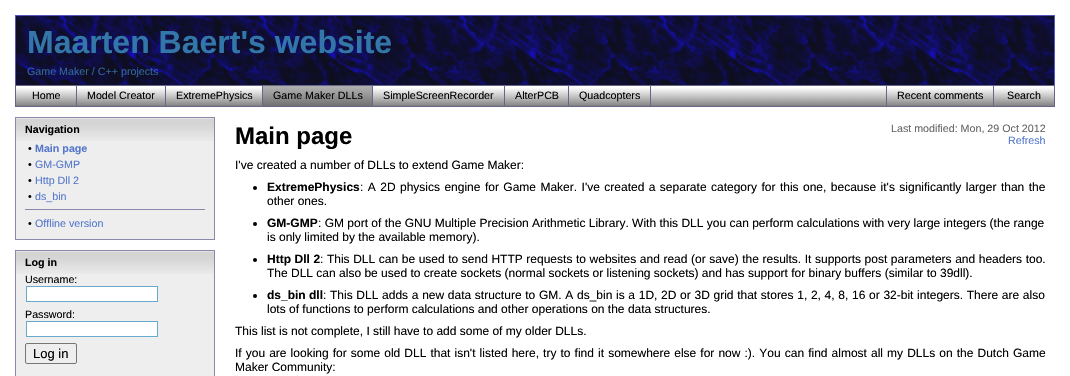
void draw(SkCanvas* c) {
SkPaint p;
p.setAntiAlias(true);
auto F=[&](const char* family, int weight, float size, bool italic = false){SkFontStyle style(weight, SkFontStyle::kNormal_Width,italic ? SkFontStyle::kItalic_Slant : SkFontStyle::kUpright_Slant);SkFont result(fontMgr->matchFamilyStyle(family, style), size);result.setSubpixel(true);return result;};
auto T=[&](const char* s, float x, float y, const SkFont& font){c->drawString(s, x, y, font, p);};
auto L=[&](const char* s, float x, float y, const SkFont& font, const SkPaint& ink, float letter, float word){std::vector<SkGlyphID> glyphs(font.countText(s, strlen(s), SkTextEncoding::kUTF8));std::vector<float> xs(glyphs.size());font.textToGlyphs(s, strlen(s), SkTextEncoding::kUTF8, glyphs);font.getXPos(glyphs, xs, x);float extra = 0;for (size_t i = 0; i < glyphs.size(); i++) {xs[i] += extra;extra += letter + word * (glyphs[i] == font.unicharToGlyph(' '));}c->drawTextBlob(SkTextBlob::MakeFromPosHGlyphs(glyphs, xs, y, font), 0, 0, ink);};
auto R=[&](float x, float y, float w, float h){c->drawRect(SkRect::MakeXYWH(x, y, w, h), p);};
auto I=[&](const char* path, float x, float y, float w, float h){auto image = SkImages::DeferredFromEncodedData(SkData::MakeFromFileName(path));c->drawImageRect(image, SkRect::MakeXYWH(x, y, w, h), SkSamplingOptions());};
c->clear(0xffffffff);
I("1.png",16,16,1038,69);
p.setColor(0xff5555bb);
R(15,15,1040,1);
R(1054,15,1,70);
R(15,15,1,70);
auto f1 = F("Liberation Sans",700,32);
p.setColor(0xff3377aa);
T("Maarten Baert's website",27,53,f1);
auto f2 = F("Liberation Sans",400,10.7);
p.setColor(0xff336699);
T("Game Maker / C++ projects",27,75,f2);
I("2.png",16,86,60,20);
p.setColor(0xff666688);
R(15,85,635,1);
R(15,106,635,1);
R(15,85,1,22);
p.setColor(0xff000000);
T("Home",32,99,f2);
I("3.png",77,86,88,20);
p.setColor(0xff666688);
R(76,85,1,22);
p.setColor(0xff000000);
T("Model Creator",87,99,f2);
I("4.png",166,86,96,20);
p.setColor(0xff666688);
R(165,85,1,22);
p.setColor(0xff000000);
T("ExtremePhysics",176,99,f2);
I("5.png",263,86,109,20);
p.setColor(0xff666688);
R(262,85,1,22);
p.setColor(0xff000000);
T("Game Maker DLLs",273,99,f2);
I("6.png",373,86,131,20);
p.setColor(0xff666688);
R(372,85,1,22);
p.setColor(0xff000000);
T("SimpleScreenRecorder",383,99,f2);
I("7.png",505,86,63,20);
p.setColor(0xff666688);
R(504,85,1,22);
p.setColor(0xff000000);
T("AlterPCB",515,99,f2);
I("8.png",569,86,81,20);
p.setColor(0xff666688);
R(568,85,1,22);
p.setColor(0xff000000);
T("Quadcopters",579,99,f2);
I("9.png",651,86,235,20);
p.setStroke(true);
p.setStrokeWidth(1);
p.setColor(0xff666688);
c->drawRect(SkRect::MakeXYWH(650.5,85.5,236,21),p);
I("10.png",887,86,106,20);
p.setStroke(false);
R(887,85,168,1);
R(993,85,1,22);
R(887,106,107,1);
p.setColor(0xff000000);
T("Recent comments",897,99,f2);
I("2.png",994,86,60,20);
p.setColor(0xff666688);
R(1054,85,1,22);
R(994,106,61,1);
p.setColor(0xff000000);
T("Search",1007,99,f2);
p.setColor(0xffeeeeee);
R(16,141,198,98);
I("11.png",16,118,198,23);
p.setStroke(true);
p.setColor(0xff8888aa);
c->drawRect(SkRect::MakeXYWH(15.5,117.5,199,122),p);
auto f3 = F("Liberation Sans",700,10.7);
p.setStroke(false);
p.setColor(0xff000000);
T("Navigation",25,133,f3);
T("•",28,152,f2);
p.setColor(0xff5577cc);
T("Main page",35,152,f3);
p.setColor(0xff000000);
T("•",28,168,f2);
p.setColor(0xff5577cc);
T("GM-GMP",35,168,f2);
p.setColor(0xff000000);
T("•",28,184,f2);
p.setColor(0xff5577cc);
T("Http Dll 2",35,184,f2);
p.setColor(0xff000000);
T("•",28,200,f2);
p.setColor(0xff5577cc);
T("ds_bin",35,200,f2);
p.setColor(0xff8888aa);
R(25,209,180,1);
p.setColor(0xff000000);
T("•",28,227,f2);
p.setColor(0xff5577cc);
T("Offline version",35,227,f2);
p.setColor(0xffeeeeee);
R(16,274,198,102);
I("11.png",16,251,198,23);
p.setStroke(true);
p.setColor(0xff8888aa);
c->drawRect(SkRect::MakeXYWH(15.5,250.5,199,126),p);
p.setStroke(false);
p.setColor(0xff000000);
T("Log in",25,266,f3);
T("Username:",25,283,f2);
p.setColor(0xffffffff);
c->drawRect(SkRect::MakeXYWH(26.5,286.5,131,15),p);
p.setStroke(true);
p.setColor(0xff66aacc);
c->drawRect(SkRect::MakeXYWH(26.5,286.5,131,15),p);
p.setStroke(false);
p.setColor(0xff000000);
T("Password:",25,318,f2);
p.setColor(0xffffffff);
c->drawRect(SkRect::MakeXYWH(26.5,321.5,131,15),p);
p.setStroke(true);
p.setColor(0xff66aacc);
c->drawRect(SkRect::MakeXYWH(26.5,321.5,131,15),p);
p.setColor(0xff767676);
c->drawRoundRect(SkRect::MakeXYWH(25.5,343.5,51,20),1.5,1.5,p);
auto f4 = F("Liberation Sans",400,13);
p.setStroke(false);
p.setColor(0xff000000);
T("Log in",33,358,f4);
auto f5 = F("Liberation Sans",700,24);
T("Main page",235,144,f5);
p.setColor(0xff666666);
T("Last modified: Mon, 29 Oct 2012",891,132,f2);
p.setColor(0xff5577cc);
T("Refresh",1008,144,f2);
auto f6 = F("Liberation Sans",400,12);
p.setColor(0xff000000);
T("I've created a number of DLLs to extend Game Maker:",235,169,f6);
c->drawCircle(255,188,2,p);
auto f7 = F("Liberation Sans",700,12);
T("ExtremePhysics",267,191,f7);
L(": A 2D physics engine for Game Maker. I've created a separate category for this one, because it's significantly larger than the",360,191,f6,p,0,1.1);
T("other ones.",267,205,f6);
c->drawCircle(255,224,2,p);
T("GM-GMP",267,227,f7);
T(": GM port of the GNU Multiple Precision Arithmetic Library. With this DLL you can perform calculations with very large integers (the range",318,227,f6);
T("is only limited by the available memory).",267,241,f6);
c->drawCircle(255,260,2,p);
L("Http Dll 2",267,263,f7,p,0,.25);
L(": This DLL can be used to send HTTP requests to websites and read (or save) the results. It supports post parameters and headers too.",320,263,f6,p,0,.25);
T("The DLL can also be used to create sockets (normal sockets or listening sockets) and has support for binary buffers (similar to 39dll).",267,277,f6);
c->drawCircle(255,296,2,p);
T("ds_bin dll",267,299,f7);
L(": This DLL adds a new data structure to GM. A ds_bin is a 1D, 2D or 3D grid that stores 1, 2, 4, 8, 16 or 32-bit integers. There are also",323,299,f6,p,0,.35);
T("lots of functions to perform calculations and other operations on the data structures.",267,313,f6);
T("This list is not complete, I still have to add some of my older DLLs.",235,335,f6);
L("If you are looking for some old DLL that isn't listed here, try to find it somewhere else for now :). You can find almost all my DLLs on the Dutch Game",235,357,f6,p,0,.75);
T("Maker Community:",235,371,f6);
}
